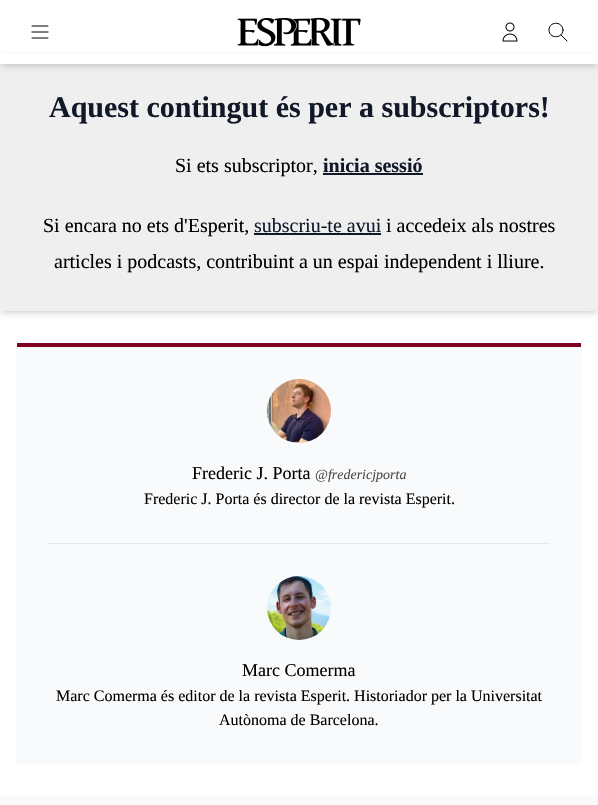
void draw(SkCanvas* c) {
SkPaint p;
p.setAntiAlias(true);
auto F=[&](const char* family, int weight, float size, bool italic = false){SkFontStyle style(weight, SkFontStyle::kNormal_Width,italic ? SkFontStyle::kItalic_Slant : SkFontStyle::kUpright_Slant);SkFont result(fontMgr->matchFamilyStyle(family, style), size);result.setSubpixel(true);return result;};
auto T=[&](const char* s, float x, float y, const SkFont& font){c->drawString(s, x, y, font, p);};
auto R=[&](float x, float y, float w, float h){c->drawRect(SkRect::MakeXYWH(x, y, w, h), p);};
auto I=[&](const char* path, float x, float y, float w, float h){auto image = SkImages::DeferredFromEncodedData(SkData::MakeFromFileName(path));c->drawImageRect(image, SkRect::MakeXYWH(x, y, w, h), SkSamplingOptions());};
auto P=[&](const char* data, bool evenOdd = false){SkPath result = *SkParsePath::FromSVGString(data);if (evenOdd) result.setFillType(SkPathFillType::kEvenOdd);return result;};
c->clear(0xffffffff);
p.setColor(0x1a000000);
p.setMaskFilter(SkMaskFilter::MakeBlur(kNormal_SkBlurStyle, 2));
c->drawRect(SkRect::MakeXYWH(2,59,594,252),p);
p.setMaskFilter(nullptr);
p.setMaskFilter(SkMaskFilter::MakeBlur(kNormal_SkBlurStyle, 3));
c->drawRect(SkRect::MakeXYWH(1,60,596,254),p);
p.setMaskFilter(nullptr);
p.setColor(0xffefefef);
R(0,64,598,247);
p.setColor(0x1a000000);
p.setMaskFilter(SkMaskFilter::MakeBlur(kNormal_SkBlurStyle, 2));
c->drawRect(SkRect::MakeXYWH(2,58,594,6),p);
p.setMaskFilter(nullptr);
p.setMaskFilter(SkMaskFilter::MakeBlur(kNormal_SkBlurStyle, 3));
c->drawRect(SkRect::MakeXYWH(1,59,596,8),p);
p.setMaskFilter(nullptr);
p.setColor(0xffffffff);
R(0,54,598,10);
p.setStroke(true);
p.setStrokeWidth(1);
p.setStrokeCap(SkPaint::kRound_Cap);
p.setStrokeJoin(SkPaint::kRound_Join);
p.setColor(0xff000000);
c->drawPath(P("M32 26h16m-16 6h16m-16 6h16"),p);
I("1.png",237,17,124,30);
I("2.png",502,22,16,20);
c->drawPath(P("M567 41l-6-6m2-5c0 9-14 9-14 0c0-9 14-9 14 0z"),p);
auto f1 = F("Liberation Serif",700,30);
p.setStroke(false);
p.setColor(0xff111827);
T("Aquest contingut és per a subscriptors!",49,117,f1);
auto f2 = F("Liberation Serif",400,20);
p.setColor(0xff000000);
T("Si ets subscriptor,",175,172,f2);
auto f3 = F("Liberation Serif",700,20);
p.setColor(0xff111827);
T("inicia sessió",323,172,f3);
R(323,173,100,2);
p.setColor(0xff000000);
T("Si encara no ets d'Esperit,",43,232,f2);
p.setColor(0xff111827);
T("subscriu-te avui",254,232,f2);
R(254,233,127,2);
p.setColor(0xff000000);
T("i accedeix als nostres",386,232,f2);
T("articles i podcasts, contribuint a un espai independent i lliure.",54,268,f2);
p.setColor(0xfff9fafb);
c->drawPath(P("M18 347h564v415c0 1-1 2-2 2h-562c-1 0-2-1-2-2v-415z"),p);
p.setColor(0xff800020);
R(17,343,564,4);
I("3.png",267,379,64,64);
auto f4 = F("Liberation Serif",400,18);
p.setColor(0xff000000);
T("Frederic J. Porta",192,479,f4);
auto f5 = F("Liberation Serif",400,14,true);
p.setColor(0xff4b4b4b);
T("@fredericjporta",315,479,f5);
auto f6 = F("Liberation Serif",400,16);
p.setColor(0xff000000);
T("Frederic J. Porta és director de la revista Esperit.",144,504,f6);
p.setColor(0xffe5e7eb);
R(48,543,502,1);
I("4.png",267,576,64,64);
p.setColor(0xff000000);
T("Marc Comerma",242,676,f4);
T("Marc Comerma és editor de la revista Esperit. Historiador per la Universitat",56,701,f6);
T("Autònoma de Barcelona.",219,725,f6);
p.setColor(0xfff9fafb);
R(0,796,598,9);
}
